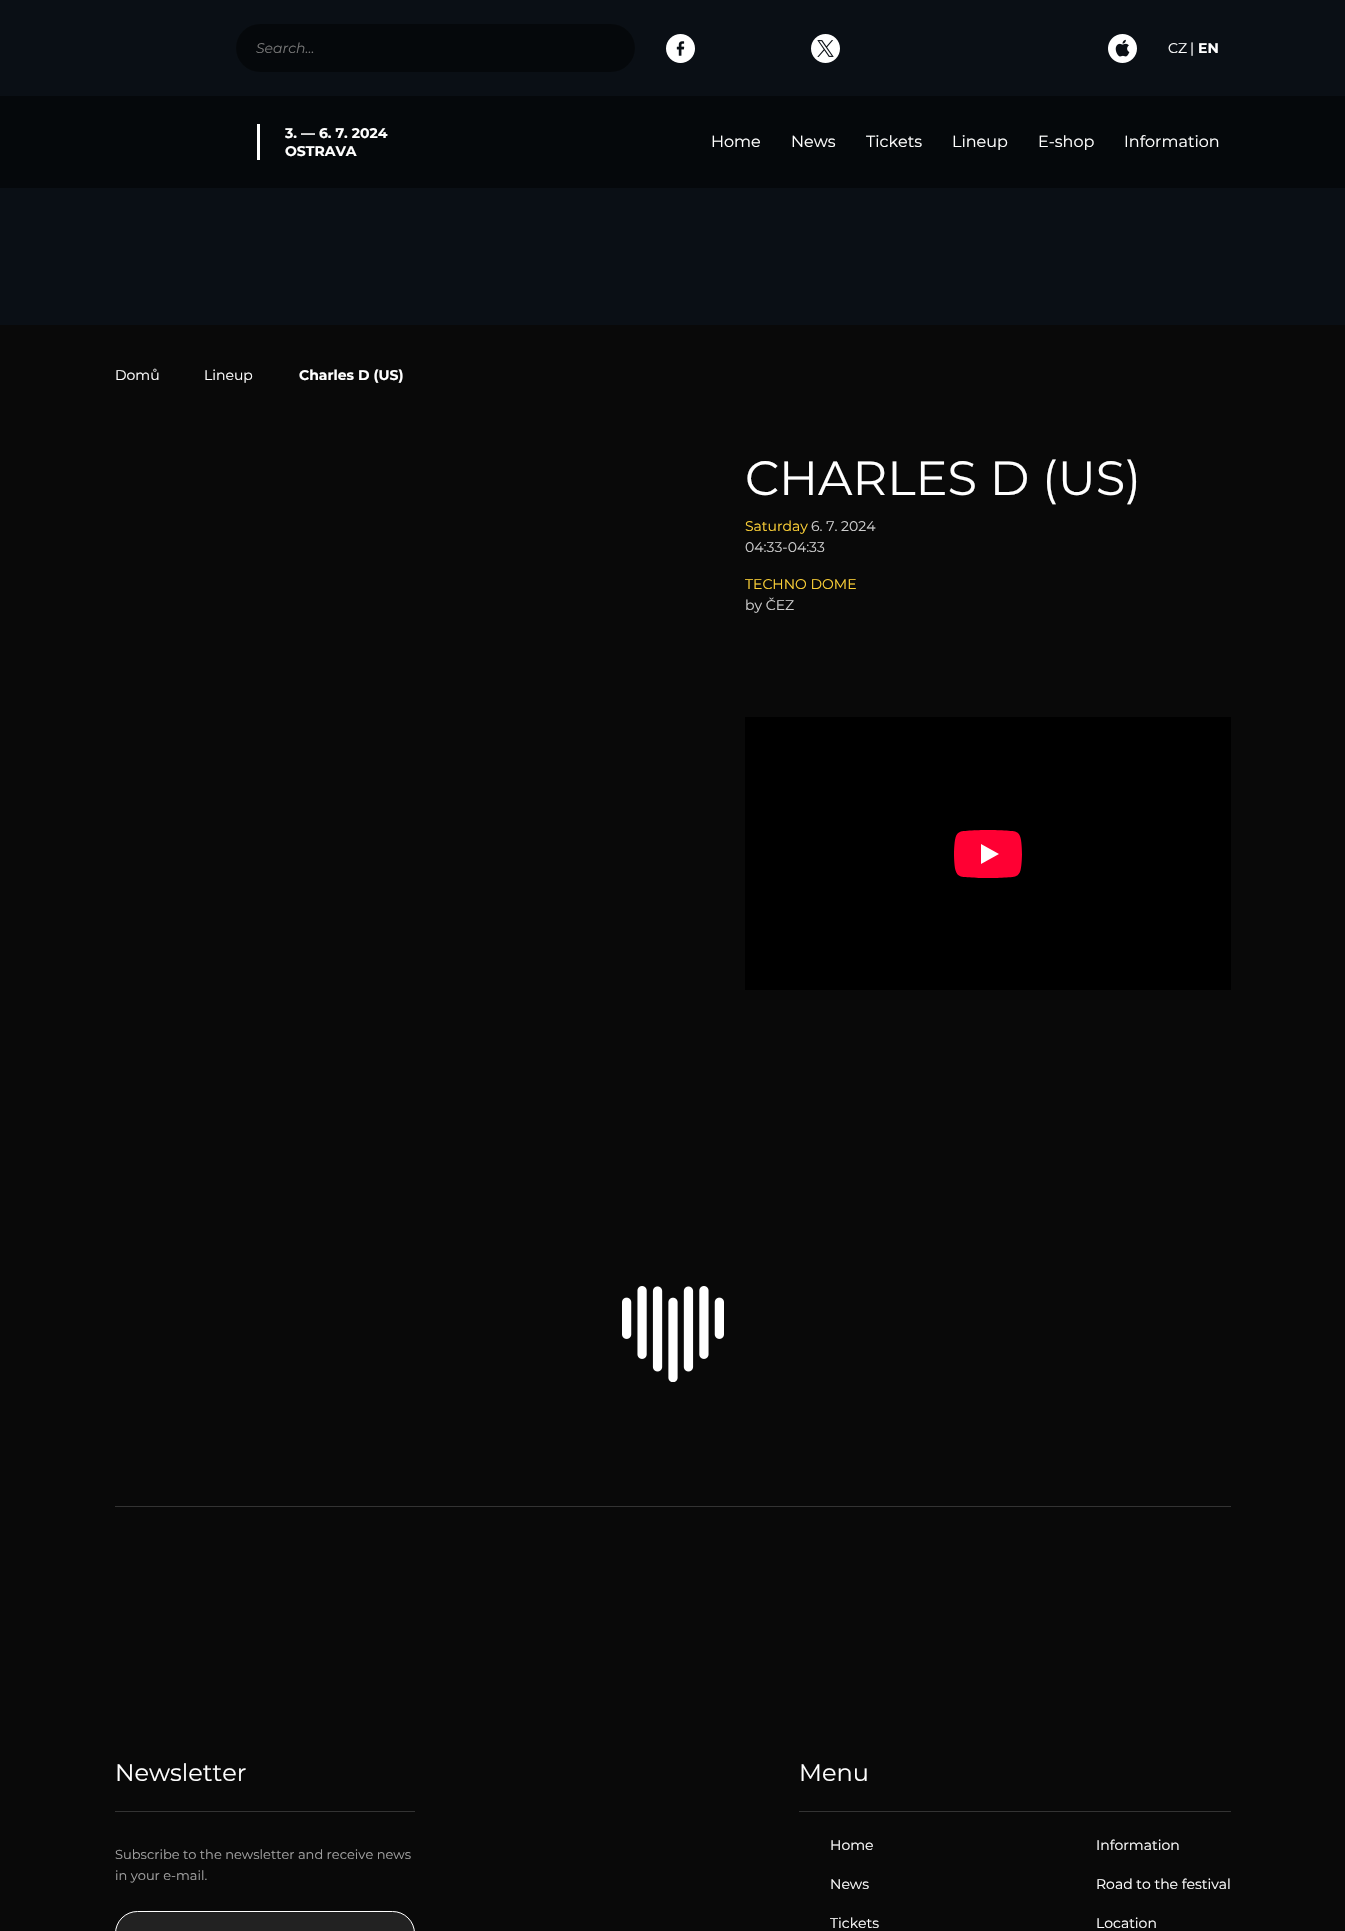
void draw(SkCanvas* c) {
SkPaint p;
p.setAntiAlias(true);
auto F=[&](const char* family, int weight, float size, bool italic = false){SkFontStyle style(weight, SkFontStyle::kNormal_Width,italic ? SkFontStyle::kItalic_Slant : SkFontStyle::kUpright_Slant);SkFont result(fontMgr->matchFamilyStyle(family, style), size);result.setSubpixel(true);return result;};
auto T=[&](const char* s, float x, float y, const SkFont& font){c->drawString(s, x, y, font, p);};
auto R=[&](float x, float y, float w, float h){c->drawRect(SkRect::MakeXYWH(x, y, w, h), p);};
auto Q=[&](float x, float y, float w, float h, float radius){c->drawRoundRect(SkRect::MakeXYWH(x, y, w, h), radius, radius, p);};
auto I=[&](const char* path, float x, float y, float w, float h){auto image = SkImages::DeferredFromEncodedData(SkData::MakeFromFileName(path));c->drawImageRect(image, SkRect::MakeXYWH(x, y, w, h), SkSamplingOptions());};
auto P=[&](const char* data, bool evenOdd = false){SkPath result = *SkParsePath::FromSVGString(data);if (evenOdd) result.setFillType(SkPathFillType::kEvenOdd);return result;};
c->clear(0xff090909);
p.setColor(0xff0a0f15);
R(0,0,1345,325);
p.setColor(0xff05080b);
Q(236,24,399,48,24);
auto f1 = F("Montserrat",400,14,true);
p.setColor(0xff757575);
T("Search...",256,53,f1);
I("1.png",666,34,29,29);
I("2.png",811,34,29,29);
I("3.png",1108,34,29,29);
auto f2 = F("Montserrat",400,14);
p.setColor(0xffffffff);
T("CZ",1168,53,f2);
T("|",1190,53,f2);
auto f3 = F("Montserrat",700,14);
T("EN",1198,53,f3);
p.setColor(0xff05080b);
R(0,96,1345,92);
p.setColor(0xffffffff);
R(257,124,3,36);
T("3. — 6. 7. 2024",285,138,f3);
T("OSTRAVA",285,156,f3);
auto f4 = F("Montserrat",400,16);
T("Home",711,147,f4);
T("News",791,147,f4);
T("Tickets",866,147,f4);
T("Lineup",952,147,f4);
T("E-shop",1038,147,f4);
T("Information",1124,147,f4);
T("Domů",115,380,f2);
T("Lineup",204,380,f2);
T("Charles D (US)",299,380,f3);
auto f5 = F("Montserrat",400,48);
T("CHARLES D (US)",745,495,f5);
p.setColor(0xfffed237);
T("Saturday",745,531,f2);
p.setColor(0xffcecece);
T("6. 7. 2024",811,531,f2);
T("04:33-04:33",745,552,f2);
p.setColor(0xfffed237);
T("TECHNO DOME",745,589,f2);
p.setColor(0xffcecece);
T("by ČEZ",745,610,f2);
I("4.png",745,717,486,273);
I("5.png",622,1286,102,96);
p.setColor(0xff333333);
R(115,1506,1116,1);
R(115,1811,300,1);
auto f6 = F("Montserrat",400,24);
p.setColor(0xffffffff);
T("Newsletter",115,1781,f6);
auto f7 = F("Montserrat",400,13);
p.setColor(0xffa2a2a2);
T("Subscribe to the newsletter and receive news",115,1859,f7);
T("in your e-mail.",115,1880,f7);
p.setColor(0xff222222);
Q(115,1911,300,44,24);
p.setColor(0xff1f1f1f);
c->drawPath(P("M139 1913h252c13 0 23 10 23 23c0-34-46-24-65-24h-168c-19 0-65-10-65 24c0-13 10-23 23-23z"),p);
p.setStroke(true);
p.setStrokeWidth(1);
p.setColor(0xffffffff);
c->drawRoundRect(SkRect::MakeXYWH(115.5,1911.5,299,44),23.5,23.5,p);
p.setStroke(false);
p.setColor(0xff333333);
R(799,1811,432,1);
p.setColor(0xffffffff);
T("Menu",799,1781,f6);
T("Home",830,1850,f2);
T("Information",1096,1850,f2);
T("News",830,1889,f2);
T("Road to the festival",1096,1889,f2);
T("Tickets",830,1928,f2);
T("Location",1096,1928,f2);
}
